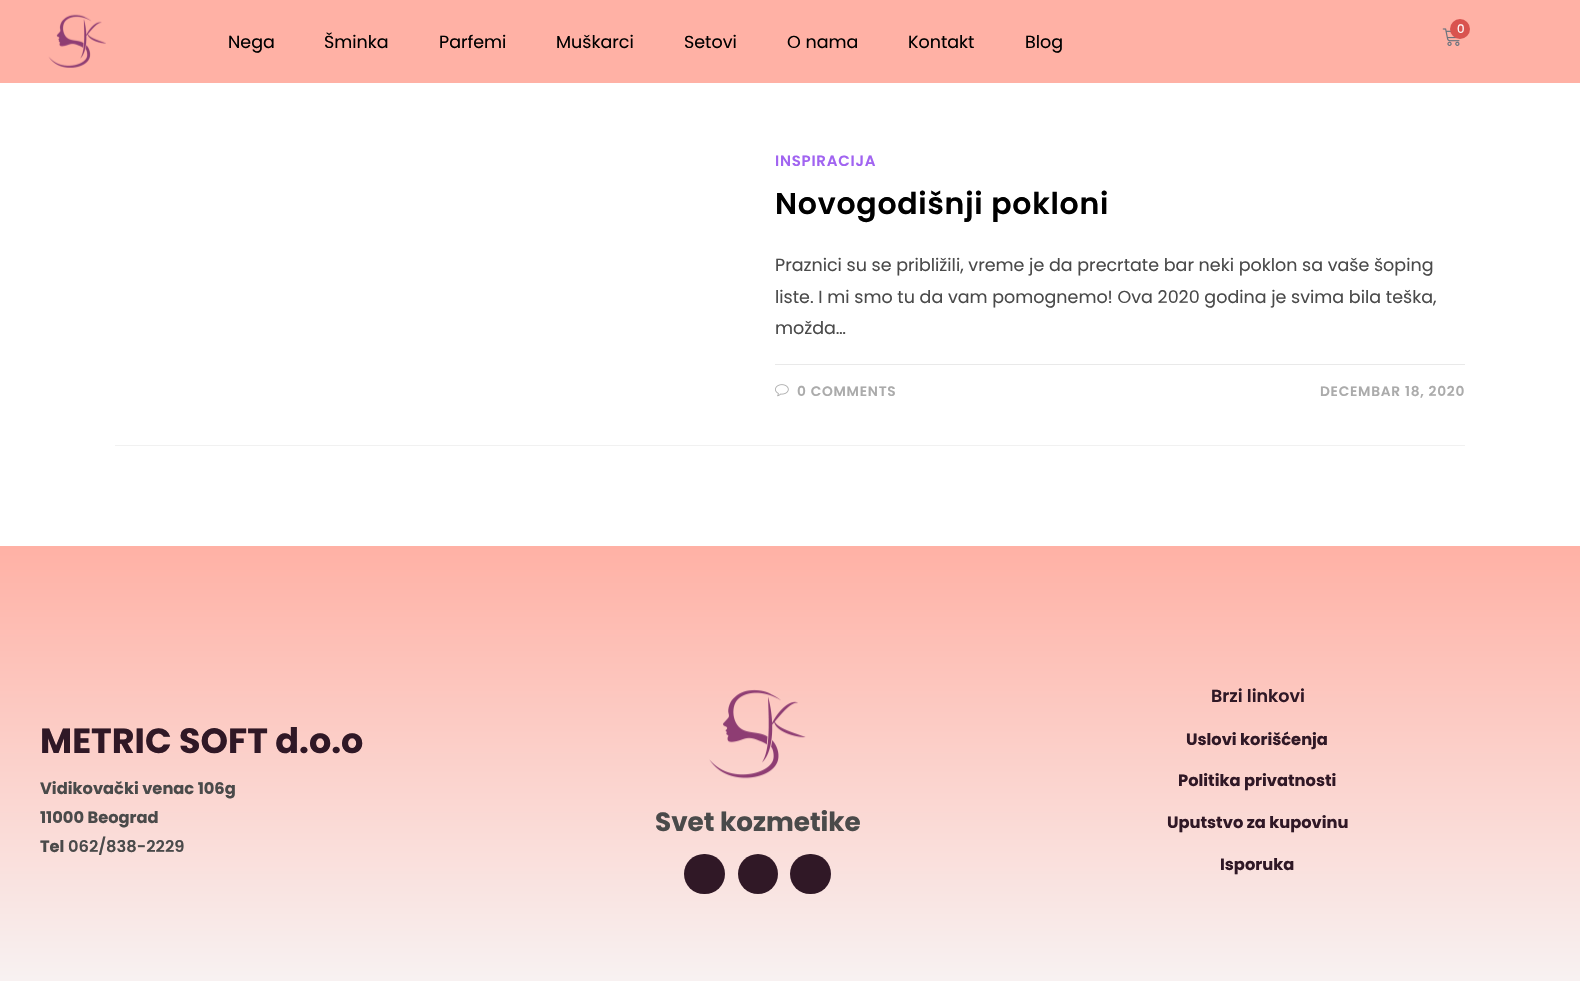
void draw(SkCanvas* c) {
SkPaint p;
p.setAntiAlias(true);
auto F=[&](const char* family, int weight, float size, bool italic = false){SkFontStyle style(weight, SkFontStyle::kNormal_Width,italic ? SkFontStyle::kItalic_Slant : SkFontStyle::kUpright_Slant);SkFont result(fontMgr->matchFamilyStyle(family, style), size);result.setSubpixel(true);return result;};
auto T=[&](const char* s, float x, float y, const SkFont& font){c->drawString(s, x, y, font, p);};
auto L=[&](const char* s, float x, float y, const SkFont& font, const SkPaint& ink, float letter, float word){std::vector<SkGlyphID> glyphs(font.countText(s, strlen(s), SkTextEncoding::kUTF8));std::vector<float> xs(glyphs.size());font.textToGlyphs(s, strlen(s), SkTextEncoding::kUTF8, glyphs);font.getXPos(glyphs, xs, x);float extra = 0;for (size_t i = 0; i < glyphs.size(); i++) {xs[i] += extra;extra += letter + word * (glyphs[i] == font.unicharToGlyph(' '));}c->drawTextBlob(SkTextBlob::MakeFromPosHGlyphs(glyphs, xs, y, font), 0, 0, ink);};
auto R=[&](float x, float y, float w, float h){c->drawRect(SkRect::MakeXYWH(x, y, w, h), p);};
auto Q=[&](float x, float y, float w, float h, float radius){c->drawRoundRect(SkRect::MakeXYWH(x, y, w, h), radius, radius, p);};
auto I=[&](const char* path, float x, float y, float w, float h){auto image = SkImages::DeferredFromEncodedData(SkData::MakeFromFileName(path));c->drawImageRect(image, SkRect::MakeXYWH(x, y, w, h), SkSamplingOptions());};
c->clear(0xffffffff);
p.setColor(0xffffb1a5);
R(0,0,1580,83);
I("1.png",48,14,58,54);
I("2.png",1442,28,18,18);
p.setColor(0xffd9534f);
c->drawCircle(1460,29,10,p);
auto f1 = F("Poppins",400,12);
p.setColor(0xffffffff);
T("0",1457,33,f1);
auto f2 = F("Poppins",400,17.5);
p.setColor(0xff000000);
T("Nega",228,48,f2);
T("Šminka",324,48,f2);
T("Parfemi",439,48,f2);
T("Muškarci",556,48,f2);
T("Setovi",684,48,f2);
T("O nama",787,48,f2);
T("Kontakt",908,48,f2);
T("Blog",1025,48,f2);
p.setColor(0xfff1f1f1);
R(115,445,1350,1);
auto f3 = F("Poppins",600,15);
p.setColor(0xffa164f1);
L("INSPIRACIJA",775,166,f3,p,.75,0);
auto f4 = F("Poppins",600,30);
p.setColor(0xff000000);
L("Novogodišnji pokloni",775,214,f4,p,.75,0);
p.setColor(0xff4a4a4a);
T("Praznici su se približili, vreme je da precrtate bar neki poklon sa vaše šoping",775,271,f2);
T("liste. I mi smo tu da vam pomognemo! Ova 2020 godina je svima bila teška,",775,303,f2);
T("možda…",775,334,f2);
p.setColor(0xffe9e9e9);
R(775,364,690,1);
I("3.png",775,384,14,13);
auto f5 = F("Poppins",600,13.75);
p.setColor(0xffababab);
L("0 COMMENTS",797,396,f5,p,.75,0);
L("DECEMBAR 18, 2020",1320,396,f5,p,.75,0);
{
const SkColor colors[] = {0xffffb1a5,0xfff7f7f8};
const float stops[] = {0,1};
const SkPoint ends[] = {{790,546}, {790,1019}};
p.setShader(SkGradientShader::MakeLinear(ends, colors, stops, 2, SkTileMode::kClamp));
p.setAlpha(255);
}
R(0,546,1580,435);
auto f6 = F("Poppins",700,35);
p.setShader(nullptr);
p.setColor(0xff301826);
T("METRIC SOFT d.o.o",40,753,f6);
auto f7 = F("Poppins",700,16.25);
p.setColor(0xff4a4a4a);
T("Vidikovački venac 106g",40,794,f7);
T("11000 Beograd",40,823,f7);
T("Tel",40,852,f7);
auto f8 = F("Poppins",600,16.25);
T("062/838-2229",68,852,f8);
I("4.png",709,689,97,90);
auto f9 = F("Poppins",700,26.25);
T("Svet kozmetike",655,831,f9);
p.setColor(0xff301826);
Q(684,854,41,40,20);
c->drawCircle(758,874,20,p);
Q(790,854,41,40,20);
auto f10 = F("Poppins",600,17.5);
T("Brzi linkovi",1211,702,f10);
T("Uslovi korišćenja",1186,745,f7);
T("Politika privatnosti",1178,786,f7);
T("Uputstvo za kupovinu",1167,828,f7);
T("Isporuka",1220,870,f7);
}
